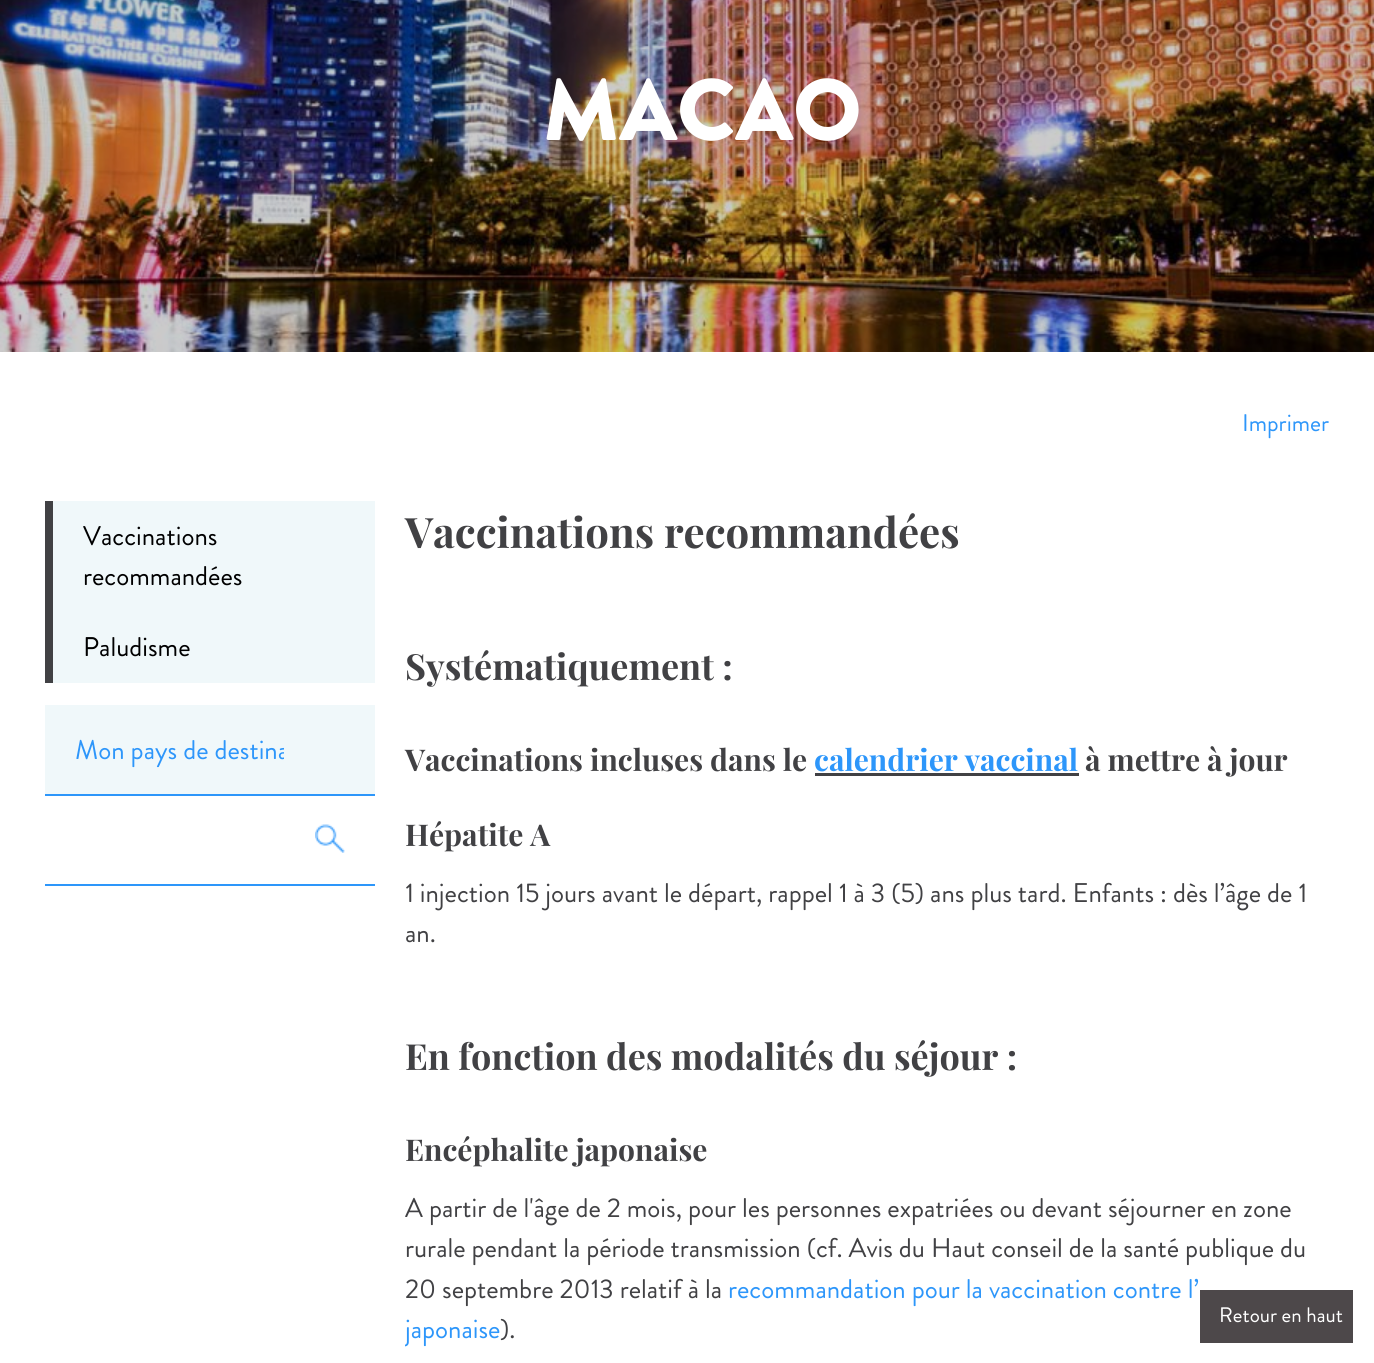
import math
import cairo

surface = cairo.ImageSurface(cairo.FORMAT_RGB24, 1374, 1363)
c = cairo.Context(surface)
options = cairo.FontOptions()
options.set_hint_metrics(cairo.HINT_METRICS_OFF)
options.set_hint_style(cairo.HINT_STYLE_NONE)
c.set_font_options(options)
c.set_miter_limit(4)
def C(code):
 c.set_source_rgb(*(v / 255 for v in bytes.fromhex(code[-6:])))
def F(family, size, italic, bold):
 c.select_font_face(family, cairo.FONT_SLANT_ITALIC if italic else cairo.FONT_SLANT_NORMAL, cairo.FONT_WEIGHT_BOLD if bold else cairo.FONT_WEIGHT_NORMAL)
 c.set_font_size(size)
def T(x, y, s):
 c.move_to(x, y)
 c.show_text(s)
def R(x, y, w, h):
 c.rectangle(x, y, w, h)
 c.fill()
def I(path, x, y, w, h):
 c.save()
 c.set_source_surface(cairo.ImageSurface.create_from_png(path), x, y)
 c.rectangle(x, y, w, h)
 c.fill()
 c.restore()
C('ffffff')
c.paint()
I('1.png',0,0,1374,352)
F('Brandon Grotesque Black',87,0,0)
C('ffffff')
T(543,140,'MACAO')
F('Brandon Grotesque',24,0,0)
C('2d96fa')
T(1242,431,'Imprimer')
R(45,884,330,2)
C('f0f8fa')
R(53,501,322,182)
C('414144')
R(45,501,8,182)
F('Brandon Grotesque',27,0,0)
C('000000')
T(83,545,'Vaccinations')
T(83,585,'recommandées')
T(83,656,'Paludisme')
C('f0f8fa')
R(45,705,330,89)
C('2d96fa')
R(45,794,330,2)
c.save()
c.rectangle(75,731,209,39)
c.clip()
T(75,759,'Mon pays de destina')
c.restore()
I('2.png',315,824,30,29)
F('Playfair Display',42,0,1)
C('414144')
T(405,548,'Vaccinations recommandées')
F('Playfair Display',36,0,1)
T(405,680,'Systématiquement :')
F('Playfair Display',30,0,1)
T(405,771,'Vaccinations incluses dans le')
C('2d96fa')
T(814,771,'calendrier vaccinal')
C('414144')
R(815,773,264,3)
T(1085,771,'à mettre à jour')
T(405,846,'Hépatite A')
F('Brandon Grotesque',27,0,0)
T(405,902,'1 injection 15 jours avant le départ, rappel 1 à 3 (5) ans plus tard. Enfants : dès l’âge de 1')
T(405,942,'an.')
F('Playfair Display',36,0,1)
T(405,1070,'En fonction des modalités du séjour :')
F('Playfair Display',30,0,1)
T(405,1161,'Encéphalite japonaise')
F('Brandon Grotesque',27,0,0)
T(405,1217,'A partir de l\'âge de 2 mois, pour les personnes expatriées ou devant séjourner en zone')
T(405,1257,'rurale pendant la période transmission (cf. Avis du Haut conseil de la santé publique du')
T(405,1298,'20 septembre 2013 relatif à la')
C('2d96fa')
T(728,1298,'recommandation pour la vaccination contre l’')
c.save()
c.rectangle(405,501,924,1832)
c.clip()
T(405,1338,'japonaise')
c.restore()
C('414144')
T(500,1338,').')
c.set_source_rgba(0.129,0.106,0.114,0.8)
R(1200,1290,153,53)
F('Brandon Grotesque',21,0,0)
C('ffffff')
T(1219,1322,'Retour en haut')
surface.write_to_png('o.png')
